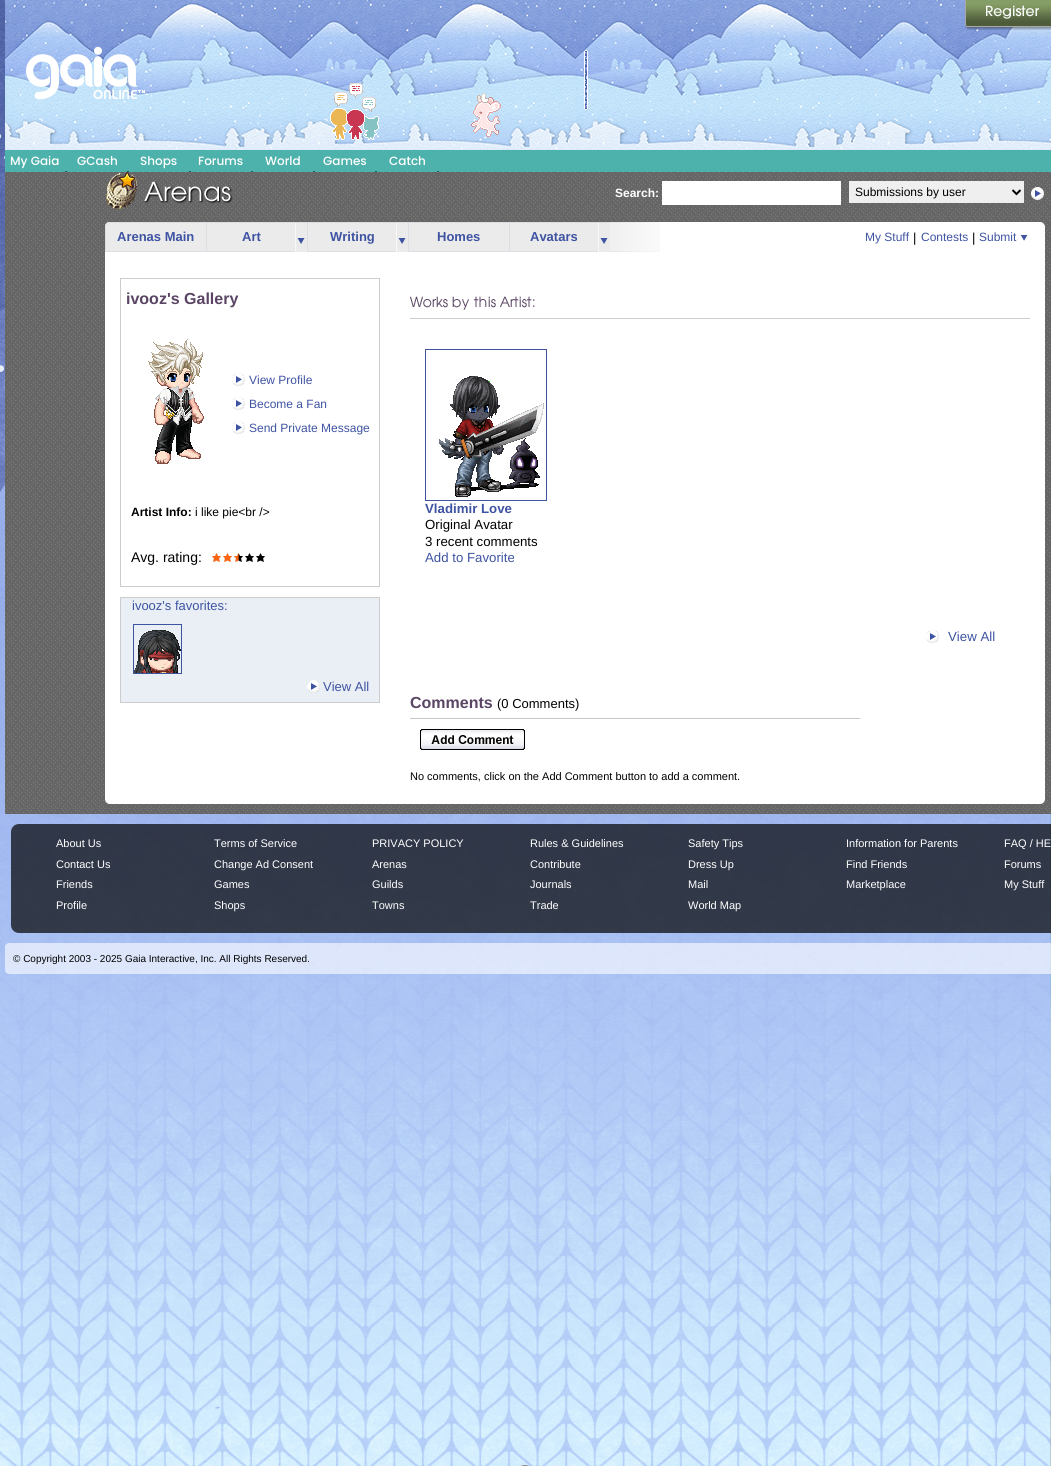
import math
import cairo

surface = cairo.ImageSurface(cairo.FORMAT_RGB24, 1051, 1466)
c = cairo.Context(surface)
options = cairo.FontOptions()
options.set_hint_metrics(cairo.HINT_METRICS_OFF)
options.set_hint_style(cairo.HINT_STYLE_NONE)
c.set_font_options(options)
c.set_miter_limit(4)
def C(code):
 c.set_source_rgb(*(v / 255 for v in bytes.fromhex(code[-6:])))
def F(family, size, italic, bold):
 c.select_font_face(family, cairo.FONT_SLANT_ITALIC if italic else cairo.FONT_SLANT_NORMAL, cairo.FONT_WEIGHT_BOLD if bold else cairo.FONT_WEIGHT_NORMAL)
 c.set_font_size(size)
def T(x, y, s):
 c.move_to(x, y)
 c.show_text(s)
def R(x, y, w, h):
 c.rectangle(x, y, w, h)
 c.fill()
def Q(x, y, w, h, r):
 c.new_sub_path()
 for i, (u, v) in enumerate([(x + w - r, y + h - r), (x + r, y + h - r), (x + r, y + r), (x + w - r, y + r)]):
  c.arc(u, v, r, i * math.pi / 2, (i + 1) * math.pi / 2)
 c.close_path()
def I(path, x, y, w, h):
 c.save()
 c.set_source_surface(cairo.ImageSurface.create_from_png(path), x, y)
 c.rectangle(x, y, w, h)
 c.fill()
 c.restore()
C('ffffff')
c.paint()
I('1.png',1050,814,1,652)
I('2.png',0,0,1051,1466)
I('3.png',5,0,960,150)
I('4.png',5,0,1046,150)
I('5.png',965,0,86,30)
I('6.png',26,46,119,54)
I('7.png',330,83,49,57)
I('8.png',471,93,30,44)
I('9.png',584,50,4,60)
C('4db1ac')
R(5,150,1046,22)
F('Poppins Medium',12,0,0)
C('ffffff')
T(10,165,'My Gaia')
T(77,165,'GCash')
T(140,165,'Shops')
T(198,165,'Forums')
T(265,165,'World')
T(323,165,'Games')
T(389,165,'Catch')
C('265f62')
R(65,171,2,1)
R(127,171,2,1)
R(189,171,2,1)
R(251,171,2,1)
R(313,171,2,1)
R(375,171,2,1)
R(437,171,2,1)
I('10.png',5,172,1046,642)
I('11.png',106,172,127,37)
F('Liberation Sans',12,0,1)
C('ffffff')
T(615,197,'Search:')
R(662,181,179,24)
C('efefef')
R(849,181,175,22)
c.new_path()
c.move_to(1012.5,190)
c.line_to(1016.5,194)
c.line_to(1020.5,190)
C('000000')
c.stroke()
F('Liberation Sans',12,0,0)
T(855,196,'Submissions by user')
I('12.png',1031,187,13,14)
C('ffffff')
Q(105,222,940,582,5)
c.fill()
C('ebebeb')
c.new_path()
c.move_to(110,222)
c.line_to(207,222)
c.line_to(207,252)
c.line_to(105,252)
c.line_to(105,227)
c.curve_to(105,224,107,222,110,222)
c.close_path()
c.fill()
C('dcdee3')
c.new_path()
c.move_to(110,222)
c.line_to(107,223)
c.line_to(206,223)
c.line_to(206,251)
c.line_to(106,251)
c.line_to(106,224)
c.curve_to(105,225,105,226,105,227)
c.line_to(105,252)
c.line_to(207,252)
c.line_to(207,222)
c.close_path()
c.fill()
F('Liberation Sans',13,0,1)
C('3e53a2')
T(117,241,'Arenas Main')
C('ebebeb')
R(207,223,88,28)
c.rectangle(206.5,222.5,101,29)
C('dcdee3')
c.set_line_width(1)
c.stroke()
C('3e53a2')
T(242,241,'Art')
I('13.png',295,223,12,29)
C('ebebeb')
R(308,223,88,28)
c.rectangle(307.5,222.5,101,29)
C('dcdee3')
c.stroke()
C('3e53a2')
T(330,241,'Writing')
I('13.png',396,223,12,29)
C('ebebeb')
c.rectangle(408.5,222.5,101,29)
c.fill_preserve()
C('dcdee3')
c.stroke()
C('3e53a2')
T(437,241,'Homes')
C('ebebeb')
R(510,223,88,28)
C('dcdee3')
R(509,222,101,1)
R(509,251,89,1)
C('3e53a2')
T(530,241,'Avatars')
I('13.png',598,223,12,29)
I('14.png',610,222,50,30)
F('Liberation Sans',12,0,0)
T(865,241,'My Stuff')
F('Liberation Sans',13,0,0)
C('000000')
T(913,242,'|')
F('Liberation Sans',12,0,0)
C('3e53a2')
T(921,241,'Contests')
F('Liberation Sans',13,0,0)
C('000000')
T(972,242,'|')
F('Liberation Sans',12,0,0)
C('3e53a2')
T(979,241,'Submit')
I('15.png',1020,235,8,6)
c.rectangle(120.5,278.5,259,308)
C('cccccc')
c.stroke()
F('Liberation Sans',16,0,1)
C('5a4564')
T(126,304,'ivooz\'s Gallery')
I('16.png',148,339,56,125)
I('17.png',232,373,13,13)
F('Liberation Sans',12,0,0)
C('3e53a2')
T(249,384,'View Profile')
I('17.png',232,397,13,13)
T(249,408,'Become a Fan')
I('17.png',232,421,13,13)
T(249,432,'Send Private Message')
F('Liberation Sans',12,0,1)
C('000000')
T(131,516,'Artist Info:')
F('Liberation Sans',12,0,0)
T(195,516,'i like pie<br />')
F('Liberation Sans',14,0,0)
T(131,562,'Avg. rating:')
I('18.png',212,553,9,9)
I('18.png',223,553,9,9)
I('19.png',234,553,9,9)
I('20.png',245,553,9,9)
I('20.png',256,553,9,9)
C('cccccc')
R(120,597,260,1)
C('e9eff5')
R(121,598,258,104)
C('cccccc')
R(379,598,1,104)
R(120,598,1,104)
F('Liberation Sans',13,0,0)
C('3e53a2')
T(132,610,'ivooz\'s favorites:')
c.rectangle(133.5,624.5,48,49)
c.stroke()
I('21.png',134,630,47,43)
I('22.png',307,680,13,13)
T(323,691,'View All')
C('cccccc')
R(120,702,260,1)
R(410,318,620,1)
I('23.png',410,296,125,14)
c.rectangle(425.5,349.5,121,151)
C('3e53a2')
c.stroke()
I('24.png',439,376,105,121)
F('Liberation Sans',13.25,0,1)
T(425,513,'Vladimir Love')
F('Liberation Sans',13.25,0,0)
C('000000')
T(425,529,'Original Avatar')
T(425,546,'3 recent comments')
C('3e53a2')
T(425,562,'Add to Favorite')
I('17.png',926,630,13,13)
T(948,641,'View All')
F('Liberation Sans',16,0,1)
C('5a4564')
T(410,708,'Comments')
F('Liberation Sans',13,0,0)
C('000000')
T(497,708,'(0 Comments)')
C('c5c7c9')
R(410,718,450,1)
I('25.png',420,729,105,21)
F('Liberation Sans',11,0,0)
C('000000')
T(410,780,'No comments, click on the Add Comment button to add a comment.')
c.set_source_rgba(0,0,0,0.7)
Q(11,824,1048,109,8)
c.fill()
C('ffffff')
T(56,847,'About Us')
T(214,847,'Terms of Service')
T(372,847,'PRIVACY POLICY')
T(530,847,'Rules & Guidelines')
T(688,847,'Safety Tips')
T(846,847,'Information for Parents')
T(1004,847,'FAQ / HE')
T(56,868,'Contact Us')
T(214,868,'Change Ad Consent')
T(372,868,'Arenas')
T(530,868,'Contribute')
T(688,868,'Dress Up')
T(846,868,'Find Friends')
T(1004,868,'Forums')
T(56,888,'Friends')
T(214,888,'Games')
T(372,888,'Guilds')
T(530,888,'Journals')
T(688,888,'Mail')
T(846,888,'Marketplace')
T(1004,888,'My Stuff')
T(56,909,'Profile')
T(214,909,'Shops')
T(372,909,'Towns')
T(530,909,'Trade')
T(688,909,'World Map')
c.set_source_rgba(1,1,1,0.6)
Q(5,943,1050,31,4)
c.fill()
F('Liberation Sans',10,0,0)
C('000000')
T(13,962,'© Copyright 2003 - 2025 Gaia Interactive, Inc. All Rights Reserved.')
Q(514.5,1465.5,21,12,10.5)
c.set_source_rgba(0.969,0.969,0.969,0.75)
c.stroke()
Q(514.5,1465.5,21,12,10.5)
C('888888')
c.stroke()
surface.write_to_png('o.png')
